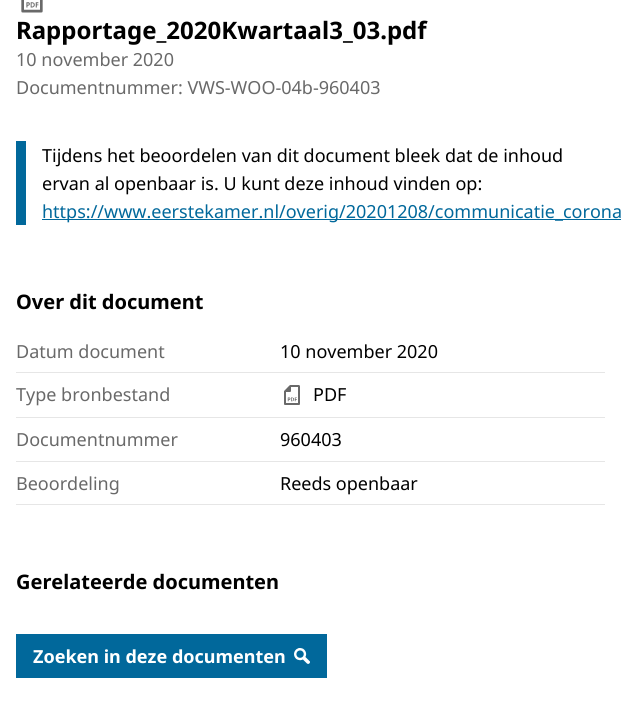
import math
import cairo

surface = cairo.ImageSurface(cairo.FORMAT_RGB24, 621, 710)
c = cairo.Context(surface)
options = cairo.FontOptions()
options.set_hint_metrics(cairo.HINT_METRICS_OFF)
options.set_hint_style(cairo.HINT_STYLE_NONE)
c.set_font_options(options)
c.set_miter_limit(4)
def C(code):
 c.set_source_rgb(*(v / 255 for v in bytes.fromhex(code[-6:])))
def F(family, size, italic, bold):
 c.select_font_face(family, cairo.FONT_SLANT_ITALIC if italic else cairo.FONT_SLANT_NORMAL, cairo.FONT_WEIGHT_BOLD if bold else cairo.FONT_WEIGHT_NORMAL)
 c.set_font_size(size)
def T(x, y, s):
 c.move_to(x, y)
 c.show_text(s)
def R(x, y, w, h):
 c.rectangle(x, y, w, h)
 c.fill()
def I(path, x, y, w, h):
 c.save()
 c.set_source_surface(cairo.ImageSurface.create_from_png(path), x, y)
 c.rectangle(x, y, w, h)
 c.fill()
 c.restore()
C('ffffff')
c.paint()
I('1.png',21,0,22,13)
F('Noto Sans',24,0,1)
C('000000')
T(16,39,'Rapportage_2020Kwartaal3_03.pdf')
F('Noto Sans',18,0,0)
C('696969')
T(16,66,'10 november 2020')
T(16,94,'Documentnummer: VWS-WOO-04b-960403')
C('01689b')
R(16,141,10,84)
C('000000')
T(42,162,'Tijdens het beoordelen van dit document bleek dat de inhoud')
T(42,190,'ervan al openbaar is. U kunt deze inhoud vinden op:')
C('01689b')
R(42,219,579,1)
T(42,218,'https://www.eerstekamer.nl/overig/20201208/communicatie_corona')
F('Noto Sans',20,0,1)
C('000000')
T(16,309,'Over dit document')
F('Noto Sans',18,0,0)
C('696969')
T(16,358,'Datum document')
C('e6e6e6')
R(16,372,589,1)
C('000000')
T(280,358,'10 november 2020')
C('696969')
T(16,401,'Type bronbestand')
C('e6e6e6')
R(16,417,589,1)
I('2.png',284,385,16,20)
C('000000')
T(313,401,'PDF')
C('696969')
T(16,446,'Documentnummer')
C('e6e6e6')
R(16,461,589,1)
C('000000')
T(280,446,'960403')
C('696969')
T(16,490,'Beoordeling')
C('e6e6e6')
R(16,504,589,1)
C('000000')
T(280,490,'Reeds openbaar')
F('Noto Sans',20,0,1)
T(16,589,'Gerelateerde documenten')
C('01689b')
R(16,634,311,44)
F('Noto Sans',18,0,1)
C('ffffff')
T(33,663,'Zoeken in deze documenten')
I('3.png',294,648,16,16)
surface.write_to_png('o.png')
